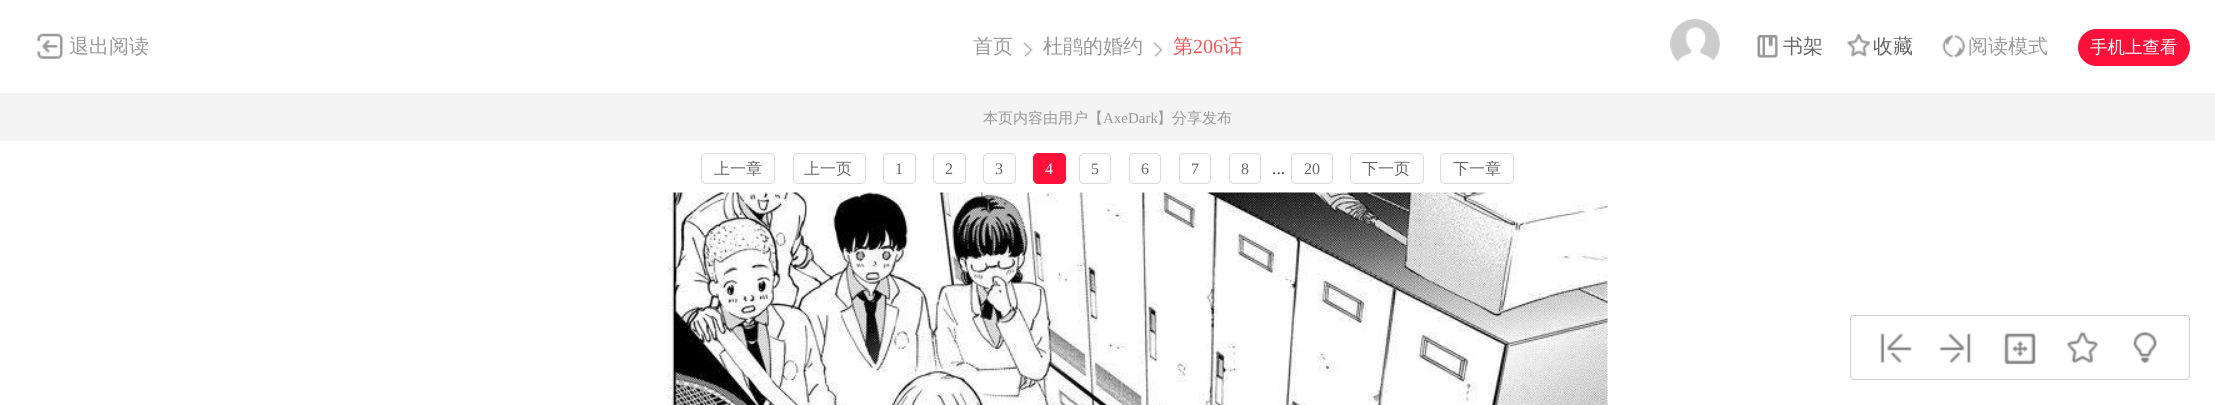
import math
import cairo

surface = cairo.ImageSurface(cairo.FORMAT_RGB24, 2215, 405)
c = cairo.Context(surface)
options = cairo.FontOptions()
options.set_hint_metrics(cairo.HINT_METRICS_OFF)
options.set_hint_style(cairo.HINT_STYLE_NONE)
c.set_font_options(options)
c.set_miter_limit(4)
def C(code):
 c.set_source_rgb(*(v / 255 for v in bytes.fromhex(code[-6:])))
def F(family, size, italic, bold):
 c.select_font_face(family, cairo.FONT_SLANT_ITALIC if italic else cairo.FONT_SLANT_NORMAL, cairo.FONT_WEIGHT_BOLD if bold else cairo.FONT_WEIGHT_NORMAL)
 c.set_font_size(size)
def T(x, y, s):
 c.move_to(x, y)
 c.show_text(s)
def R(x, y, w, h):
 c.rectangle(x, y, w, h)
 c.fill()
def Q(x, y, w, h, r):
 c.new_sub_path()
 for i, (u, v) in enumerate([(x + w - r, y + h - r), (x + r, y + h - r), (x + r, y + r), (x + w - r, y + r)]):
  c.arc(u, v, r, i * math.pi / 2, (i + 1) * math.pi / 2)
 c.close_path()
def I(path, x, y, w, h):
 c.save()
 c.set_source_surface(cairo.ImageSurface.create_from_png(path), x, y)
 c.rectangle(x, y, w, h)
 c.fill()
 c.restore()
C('ffffff')
c.paint()
C('ededed')
R(0,93,2215,1)
I('1.png',37,33,26,26)
F('WenQuanYi Zen Hei Medium',20,0,0)
C('999999')
T(69,53,'退出阅读')
T(973,53,'首页')
I('2.png',1023,42,10,15)
T(1043,53,'杜鹃的婚约')
I('2.png',1153,42,10,15)
C('f7545a')
T(1173,53,'第')
F('Liberation Serif',20,0,0)
T(1193,53,'206')
F('WenQuanYi Zen Hei Medium',20,0,0)
T(1223,53,'话')
I('3.png',1670,19,50,43)
I('4.png',1757,35,21,23)
C('666666')
T(1783,53,'书架')
I('5.png',1847,33,23,24)
T(1873,53,'收藏')
I('6.png',1942,35,23,23)
C('999999')
T(1968,53,'阅读模式')
C('fd113a')
Q(2078,29,112,37,18.5)
c.fill()
F('WenQuanYi Zen Hei Medium',17.5,0,0)
C('ffffff')
T(2090,53,'手机上查看')
C('f4f4f4')
R(0,95,2215,46)
C('f0f0f0')
R(0,94,2215,1)
F('WenQuanYi Zen Hei Medium',15,0,0)
C('999999')
T(983,123,'本页内容由用户【')
F('Liberation Serif',15,0,0)
T(1103,123,'AxeDark')
F('WenQuanYi Zen Hei Medium',15,0,0)
T(1157,123,'】分享发布')
Q(701.5,153.5,73,30,4.5)
C('d9d9d9')
c.set_line_width(1)
c.stroke()
F('WenQuanYi Zen Hei Medium',16,0,0)
C('666666')
T(714,174,'上一章')
Q(793.5,153.5,72,30,4.5)
C('d9d9d9')
c.stroke()
C('666666')
T(804,174,'上一页')
Q(883.5,153.5,32,30,4.5)
C('d9d9d9')
c.stroke()
F('Liberation Serif',16,0,0)
C('666666')
T(895,174,'1')
Q(933.5,153.5,32,30,4.5)
C('d9d9d9')
c.stroke()
C('666666')
T(945,174,'2')
Q(983.5,153.5,32,30,4.5)
C('d9d9d9')
c.stroke()
C('666666')
T(995,174,'3')
C('fd113a')
Q(1033.5,153.5,32,30,4.5)
c.fill_preserve()
c.stroke()
C('ffffff')
T(1045,174,'4')
Q(1079.5,153.5,31,30,4.5)
C('d9d9d9')
c.stroke()
C('666666')
T(1091,174,'5')
Q(1129.5,153.5,31,30,4.5)
C('d9d9d9')
c.stroke()
C('666666')
T(1141,174,'6')
Q(1179.5,153.5,31,30,4.5)
C('d9d9d9')
c.stroke()
C('666666')
T(1191,174,'7')
Q(1229.5,153.5,31,30,4.5)
C('d9d9d9')
c.stroke()
C('666666')
T(1241,174,'8')
F('Liberation Serif',17.5,0,0)
C('444444')
T(1272,174,'...')
Q(1291.5,153.5,41,30,4.5)
C('d9d9d9')
c.stroke()
F('Liberation Serif',16,0,0)
C('666666')
T(1304,174,'20')
Q(1350.5,153.5,73,30,4.5)
C('d9d9d9')
c.stroke()
F('WenQuanYi Zen Hei Medium',16,0,0)
C('666666')
T(1362,174,'下一页')
Q(1440.5,153.5,73,30,4.5)
C('d9d9d9')
c.stroke()
C('666666')
T(1453,174,'下一章')
I('7.png',667,192,941,213)
Q(1850.5,315.5,339,64,3.5)
C('cccccc')
c.stroke()
I('8.png',1880,333,32,30)
I('9.png',1939,333,32,30)
I('10.png',2004,333,32,32)
I('11.png',2066,331,32,32)
I('12.png',2133,331,24,32)
surface.write_to_png('o.png')
